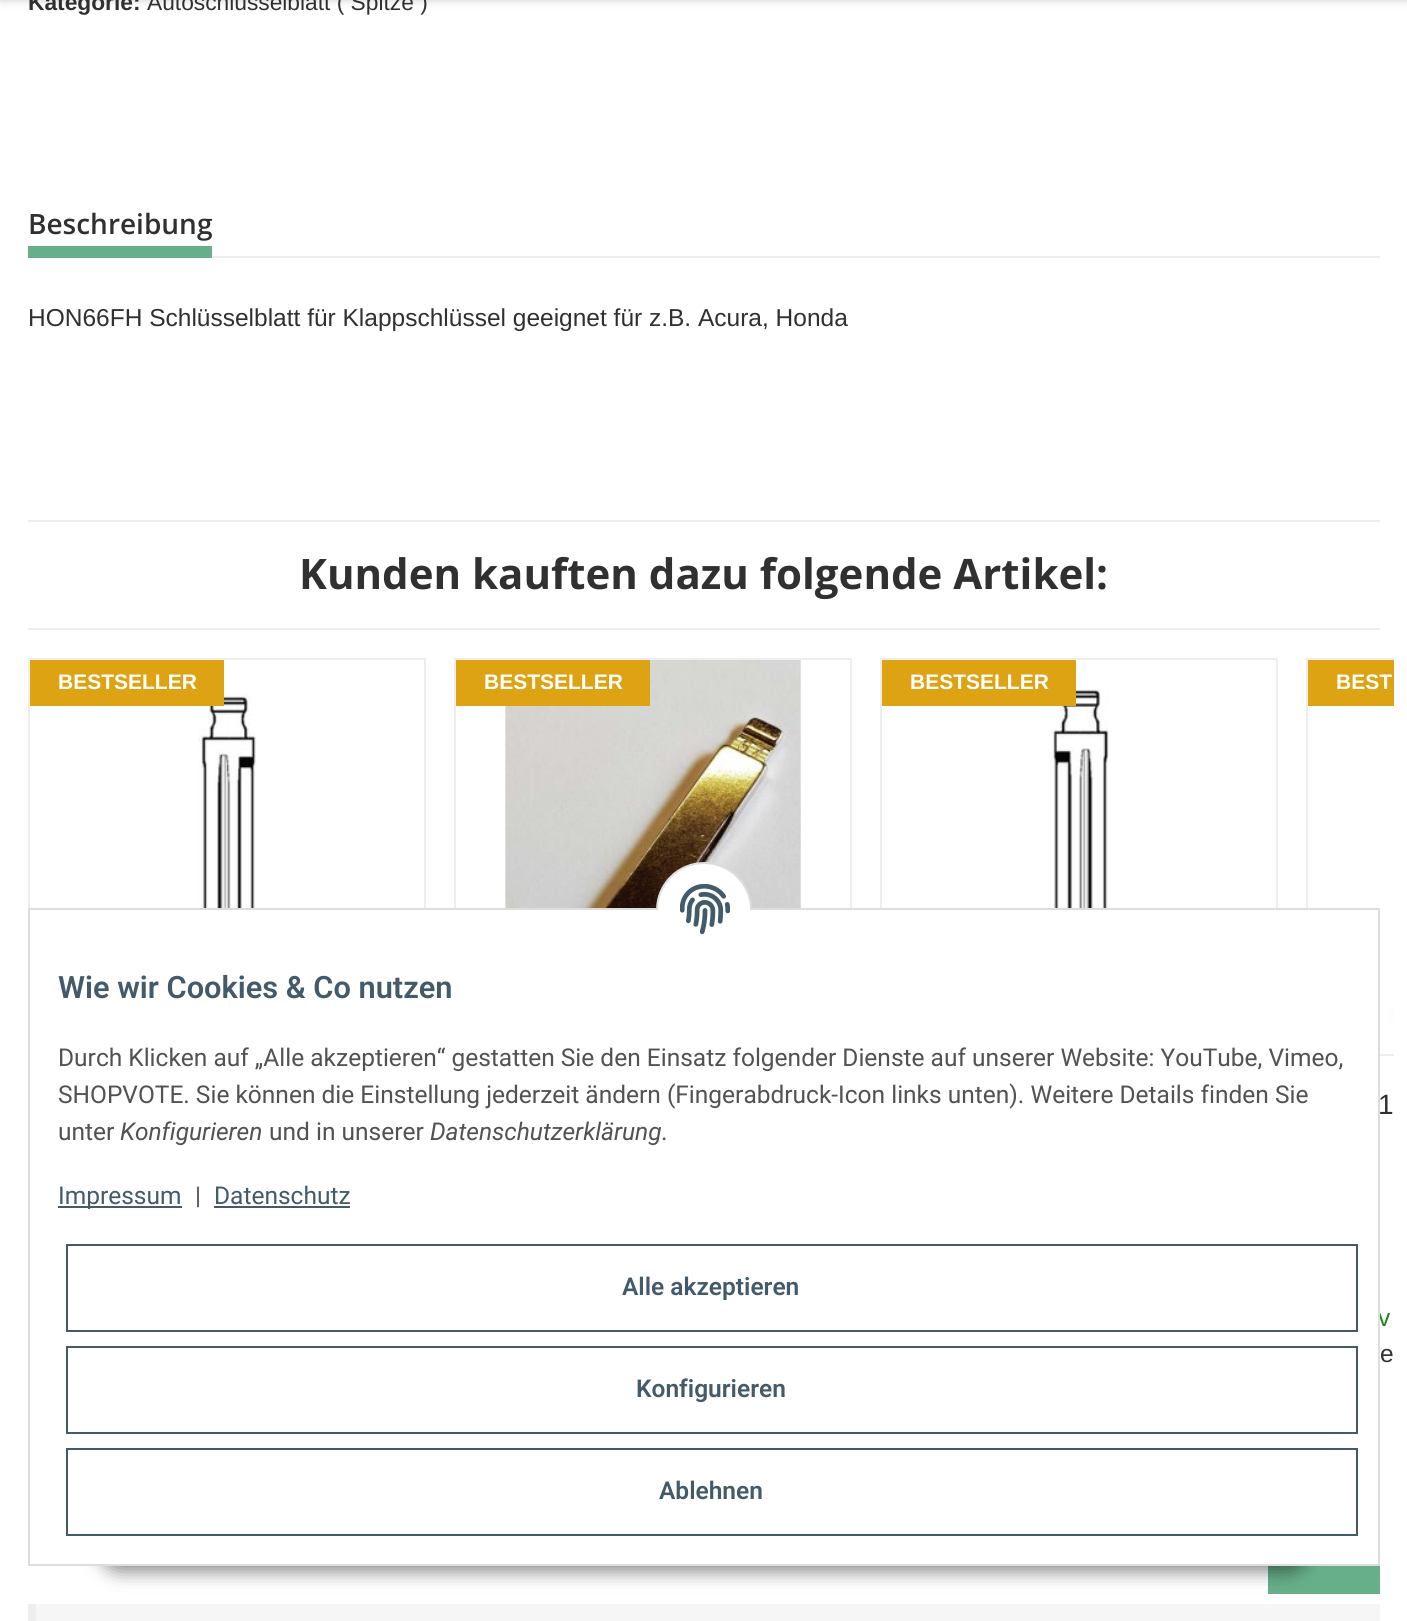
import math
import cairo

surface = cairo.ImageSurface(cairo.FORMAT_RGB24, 1407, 1621)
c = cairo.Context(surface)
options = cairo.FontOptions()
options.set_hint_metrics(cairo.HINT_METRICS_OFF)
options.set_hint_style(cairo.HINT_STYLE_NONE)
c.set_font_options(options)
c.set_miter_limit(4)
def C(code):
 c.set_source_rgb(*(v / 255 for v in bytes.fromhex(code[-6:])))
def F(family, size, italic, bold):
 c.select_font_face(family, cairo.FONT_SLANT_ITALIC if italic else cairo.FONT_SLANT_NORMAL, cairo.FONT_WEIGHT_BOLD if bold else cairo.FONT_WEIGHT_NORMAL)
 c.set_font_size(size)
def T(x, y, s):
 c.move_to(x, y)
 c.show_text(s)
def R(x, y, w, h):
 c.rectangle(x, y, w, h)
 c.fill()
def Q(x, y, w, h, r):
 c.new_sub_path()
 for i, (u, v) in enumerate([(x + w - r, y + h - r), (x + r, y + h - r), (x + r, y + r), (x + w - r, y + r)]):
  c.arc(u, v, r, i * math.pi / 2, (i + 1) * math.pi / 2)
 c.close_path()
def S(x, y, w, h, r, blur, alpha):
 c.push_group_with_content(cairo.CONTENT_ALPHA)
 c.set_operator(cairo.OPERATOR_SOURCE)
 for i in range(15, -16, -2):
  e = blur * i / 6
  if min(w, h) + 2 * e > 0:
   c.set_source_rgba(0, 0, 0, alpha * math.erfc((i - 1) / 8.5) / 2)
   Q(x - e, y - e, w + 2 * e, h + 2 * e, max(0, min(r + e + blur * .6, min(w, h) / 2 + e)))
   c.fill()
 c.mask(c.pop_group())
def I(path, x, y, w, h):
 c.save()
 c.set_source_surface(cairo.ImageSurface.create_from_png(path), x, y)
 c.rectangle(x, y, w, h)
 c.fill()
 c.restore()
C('ffffff')
c.paint()
C('000000')
S(0,-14,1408,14,0,4.5,.2)
F('Liberation Sans',22.75,0,1)
C('303030')
T(28,10,'Kategorie:')
F('Liberation Sans',22.75,0,0)
T(147,10,'Autoschlüsselblatt ( Spitze )')
C('eeeeee')
R(212,256,1168,2)
F('Open Sans SemiBold',28,0,0)
C('303030')
T(28,234,'Beschreibung')
C('67af8a')
R(28,246,184,12)
F('Liberation Sans',24.5,0,0)
C('303030')
T(28,326,'HON66FH Schlüsselblatt für Klappschlüssel geeignet für z.B. Acura, Honda')
C('eeeeee')
R(28,520,1352,2)
R(28,628,1352,2)
F('Open Sans',42,0,1)
C('303030')
T(299,589,'Kunden kauften dazu folgende Artikel:')
c.rectangle(29,659,396,396)
C('eeeeee')
c.stroke()
I('1.png',198,692,59,216)
C('dea313')
R(30,660,194,46)
F('Liberation Sans',21,0,1)
C('ffffff')
T(58,689,'BESTSELLER')
c.rectangle(455,659,396,396)
C('eeeeee')
c.stroke()
I('2.png',505,660,296,248)
C('dea313')
R(456,660,194,46)
C('ffffff')
T(484,689,'BESTSELLER')
c.rectangle(881,659,396,396)
C('eeeeee')
c.stroke()
I('3.png',1050,689,59,219)
C('dea313')
R(882,660,194,46)
C('ffffff')
T(910,689,'BESTSELLER')
c.save()
c.rectangle(14,658,1380,716)
c.clip()
c.rectangle(1307,659,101,396)
C('eeeeee')
c.stroke()
c.restore()
C('dea313')
R(1308,660,86,46)
C('ffffff')
T(1336,689,'BEST')
I('4.png',1389,1007,5,17)
F('Liberation Sans',28,0,0)
C('303030')
T(1378,1114,'1')
F('Liberation Sans',24.5,0,0)
C('1c871e')
T(1378,1326,'v')
C('303030')
T(1380,1362,'e')
C('67af8a')
R(1268,1566,112,28)
C('000000')
S(98,1516,1212,56,28,9,.45)
C('ffffff')
c.rectangle(29,909,1350,656)
c.fill_preserve()
C('dddddd')
c.stroke()
C('ffffff')
c.arc(704,910,47,0,2 * math.pi)
c.fill_preserve()
C('dddddd')
c.stroke()
C('ffffff')
R(656,910,96,48)
I('5.png',680,884,50,51)
F('Roboto SemiBold',30.75,0,0)
C('435a6b')
T(58,998,'Wie wir Cookies & Co nutzen')
F('Roboto',24.5,0,0)
C('525252')
T(58,1066,'Durch Klicken auf „Alle akzeptieren“ gestatten Sie den Einsatz folgender Dienste auf unserer Website: YouTube, Vimeo,')
T(58,1103,'SHOPVOTE. Sie können die Einstellung jederzeit ändern (Fingerabdruck-Icon links unten). Weitere Details finden Sie')
T(58,1140,'unter')
F('Roboto',24.5,1,0)
T(120,1140,'Konfigurieren')
F('Roboto',24.5,0,0)
T(269,1140,'und in unserer')
F('Roboto',24.5,1,0)
T(430,1140,'Datenschutzerklärung')
F('Roboto',24.5,0,0)
T(661,1140,'.')
C('435a6b')
R(58,1206,124,2)
T(58,1204,'Impressum')
C('525252')
T(195,1204,'|')
C('435a6b')
T(214,1204,'Datenschutz')
R(214,1206,136,2)
c.rectangle(67,1245,1290,86)
c.stroke()
F('Roboto SemiBold',24.5,0,0)
T(622,1295,'Alle akzeptieren')
c.rectangle(67,1347,1290,86)
c.stroke()
T(636,1397,'Konfigurieren')
c.rectangle(67,1449,1290,86)
c.stroke()
T(659,1499,'Ablehnen')
C('f6f6f6')
R(36,1604,1344,17)
C('eeeeee')
R(28,1604,8,17)
surface.write_to_png('o.png')
